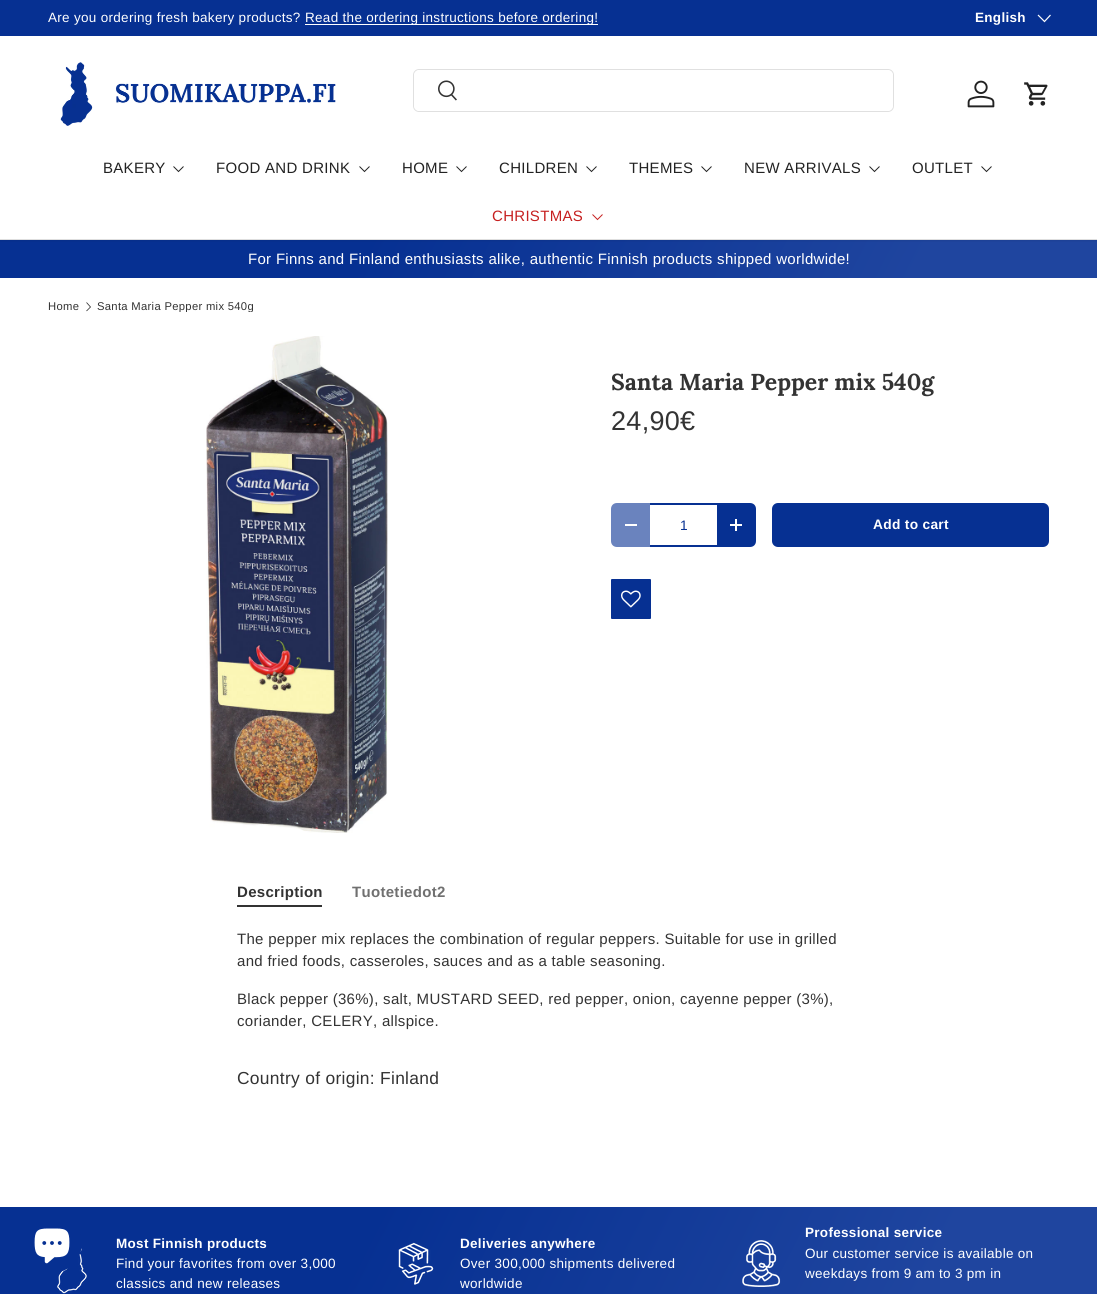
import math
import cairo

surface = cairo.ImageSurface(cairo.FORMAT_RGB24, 1097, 1294)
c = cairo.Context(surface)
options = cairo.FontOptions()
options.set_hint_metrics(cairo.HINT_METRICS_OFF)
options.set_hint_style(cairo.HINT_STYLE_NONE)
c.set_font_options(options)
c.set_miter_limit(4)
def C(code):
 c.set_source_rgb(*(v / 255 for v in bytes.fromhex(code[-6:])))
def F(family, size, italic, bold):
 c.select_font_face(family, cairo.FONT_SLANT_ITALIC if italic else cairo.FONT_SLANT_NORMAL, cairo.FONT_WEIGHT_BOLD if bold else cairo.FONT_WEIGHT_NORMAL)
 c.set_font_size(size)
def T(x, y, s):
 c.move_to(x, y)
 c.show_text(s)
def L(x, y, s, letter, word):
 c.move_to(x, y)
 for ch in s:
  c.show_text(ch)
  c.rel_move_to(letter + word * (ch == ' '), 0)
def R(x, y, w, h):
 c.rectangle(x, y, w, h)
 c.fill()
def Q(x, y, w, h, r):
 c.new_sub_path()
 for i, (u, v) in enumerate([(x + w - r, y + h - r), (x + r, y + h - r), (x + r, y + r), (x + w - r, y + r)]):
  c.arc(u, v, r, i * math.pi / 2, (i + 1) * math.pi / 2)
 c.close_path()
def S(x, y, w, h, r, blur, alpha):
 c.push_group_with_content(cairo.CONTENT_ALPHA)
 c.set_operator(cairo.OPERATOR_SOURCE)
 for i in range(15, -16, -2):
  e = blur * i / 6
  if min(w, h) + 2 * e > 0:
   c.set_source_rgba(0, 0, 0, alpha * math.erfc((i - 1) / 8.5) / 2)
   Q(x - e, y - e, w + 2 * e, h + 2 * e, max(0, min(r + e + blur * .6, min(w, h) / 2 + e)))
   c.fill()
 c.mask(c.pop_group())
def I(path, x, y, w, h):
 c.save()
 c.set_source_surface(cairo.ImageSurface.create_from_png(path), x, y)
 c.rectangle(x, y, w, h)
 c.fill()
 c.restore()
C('ffffff')
c.paint()
gradient = cairo.LinearGradient(105,33,992,485)
gradient.add_color_stop_rgba(.33,0.024,0.188,0.573,1)
gradient.add_color_stop_rgba(.84,0.122,0.271,0.624,1)
c.set_source(gradient)
R(0,240,1097,38)
c.save()
c.rectangle(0,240,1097,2)
c.clip()
C('000000')
S(-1,35,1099,206,0,1.5,.08)
c.restore()
C('063092')
R(0,0,1097,36)
F('Liberation Sans',13.5,0,0)
C('ffffff')
L(48,22,'Are you ordering fresh bakery products?',.3,0)
R(305,24,293,1)
L(305,22,'Read the ordering instructions before ordering!',.3,0)
F('Liberation Sans',13.5,0,1)
L(975,22,'English',.3,0)
c.new_path()
c.move_to(1050.5,15)
c.line_to(1044.5,21.5)
c.line_to(1038,15)
c.set_line_width(1.2)
c.stroke()
I('1.png',60,62,276,64)
Q(413.5,69.5,480,42,5.5)
C('e0e0e0')
c.set_line_width(1)
c.stroke()
C('ffffff')
Q(414,70,479,41,6)
c.fill()
I('2.png',438,80,19,21)
I('3.png',967,80,28,28)
I('4.png',1024,82,24,24)
F('Liberation Sans',15,0,0)
C('222222')
L(103,173,'BAKERY',.3,0)
c.new_path()
c.move_to(183.5,166.5)
c.line_to(178.5,171.5)
c.line_to(173.5,166.5)
c.stroke()
L(216,173,'FOOD AND DRINK',.3,0)
c.new_path()
c.move_to(369.5,166.5)
c.line_to(364.5,171.5)
c.line_to(359.5,166.5)
c.stroke()
L(402,173,'HOME',.3,0)
c.new_path()
c.move_to(466.5,166.5)
c.line_to(461.5,171.5)
c.line_to(456.5,166.5)
c.stroke()
L(499,173,'CHILDREN',.3,0)
c.new_path()
c.move_to(596.5,166.5)
c.line_to(591.5,171.5)
c.line_to(586.5,166.5)
c.stroke()
L(629,173,'THEMES',.3,0)
c.new_path()
c.move_to(711.5,166.5)
c.line_to(706.5,171.5)
c.line_to(701.5,166.5)
c.stroke()
L(744,173,'NEW ARRIVALS',.3,0)
c.new_path()
c.move_to(879.5,166.5)
c.line_to(874.5,171.5)
c.line_to(869.5,166.5)
c.stroke()
L(912,173,'OUTLET',.3,0)
c.new_path()
c.move_to(991.5,166.5)
c.line_to(986.5,171.5)
c.line_to(981.5,166.5)
c.stroke()
C('c62020')
L(492,221,'CHRISTMAS',.3,0)
c.new_path()
c.move_to(602.5,214.5)
c.line_to(597.5,219.5)
c.line_to(592.5,214.5)
c.stroke()
C('dedede')
R(0,239,1097,1)
C('ffffff')
L(248,264,'For Finns and Finland enthusiasts alike, authentic Finnish products shipped worldwide!',.3,0)
F('Liberation Sans',11.25,0,0)
C('333333')
L(48,310,'Home',.3,0)
c.new_path()
c.move_to(86.5,302.5)
c.line_to(90.5,307)
c.line_to(86.5,311)
c.set_line_width(.8)
c.stroke()
c.save()
c.rectangle(97,301,157,11)
c.clip()
L(97,310,'Santa Maria Pepper mix 540g',.3,0)
c.restore()
I('5.png',206,336,182,497)
F('Lora',23,0,1)
T(611,390,'Santa Maria Pepper mix 540g')
F('Liberation Sans',27,0,0)
L(611,430,'24,90€',.3,0)
C('6a83be')
c.new_path()
c.move_to(617,503)
c.line_to(650,503)
c.line_to(650,547)
c.line_to(617,547)
c.curve_to(613.5,547,611,544.5,611,541)
c.line_to(611,509)
c.curve_to(611,505.5,613.5,503,617,503)
c.close_path()
c.fill()
C('ffffff')
R(625,524,12,2)
C('063092')
R(650,545,67,2)
R(650,503,67,2)
F('Liberation Sans',13.75,0,0)
T(680,530,'1')
c.new_path()
c.move_to(717,503)
c.line_to(750,503)
c.curve_to(753.5,503,756,505.5,756,509)
c.line_to(756,541)
c.curve_to(756,544.5,753.5,547,750,547)
c.line_to(717,547)
c.close_path()
c.fill()
C('ffffff')
R(730,524,12,2)
R(735,519,2,12)
gradient = cairo.LinearGradient(237,426,1030,624)
gradient.add_color_stop_rgba(.6,0.18,0.333,0.682,1)
gradient.add_color_stop_rgba(.6,0.024,0.188,0.573,1)
gradient.add_color_stop_rgba(1,0.024,0.188,0.573,1)
c.set_source(gradient)
Q(772,503,277,44,6)
c.fill()
F('Liberation Sans',13.75,0,1)
C('ffffff')
L(873,529,'Add to cart',.3,0)
C('063092')
Q(611,579,40,40,1)
c.fill()
I('6.png',621,590,20,18)
F('Liberation Sans',15,0,1)
C('333333')
L(237,897,'Description',.3,0)
R(237,905,85,2)
C('707070')
L(352,897,'Tuotetiedot2',.3,0)
F('Liberation Sans',15,0,0)
C('333333')
L(237,944,'The pepper mix replaces the combination of regular peppers. Suitable for use in grilled',.3,0)
L(237,966,'and fried foods, casseroles, sauces and as a table seasoning.',.3,0)
L(237,1004,'Black pepper (36%), salt, MUSTARD SEED, red pepper, onion, cayenne pepper (3%),',.3,0)
L(237,1026,'coriander, CELERY, allspice.',.3,0)
F('Liberation Sans',17.4,0,0)
L(237,1084,'Country of origin: Finland',.3,0)
gradient = cairo.LinearGradient(90,1030,1007,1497)
gradient.add_color_stop_rgba(.33,0.024,0.188,0.573,1)
gradient.add_color_stop_rgba(.84,0.122,0.271,0.624,1)
c.set_source(gradient)
R(0,1207,1097,87)
I('8.png',57,1248,30,46)
C('063092')
c.arc(52,1243,30,0,2 * math.pi)
c.fill()
I('7.png',34,1228,36,36)
F('Liberation Sans',13.5,0,1)
C('ffffff')
L(116,1248,'Most Finnish products',.3,0)
F('Liberation Sans',13.5,0,0)
L(116,1268,'Find your favorites from over 3,000',.3,0)
L(116,1288,'classics and new releases',.3,0)
I('9.png',398,1242,36,43)
F('Liberation Sans',13.5,0,1)
L(460,1248,'Deliveries anywhere',.3,0)
F('Liberation Sans',13.5,0,0)
L(460,1268,'Over 300,000 shipments delivered',.3,0)
L(460,1288,'worldwide',.3,0)
I('10.png',742,1240,39,47)
F('Liberation Sans',13.5,0,1)
L(805,1237,'Professional service',.3,0)
F('Liberation Sans',13.5,0,0)
L(805,1258,'Our customer service is available on',.3,0)
L(805,1278,'weekdays from 9 am to 3 pm in',.3,0)
surface.write_to_png('o.png')
